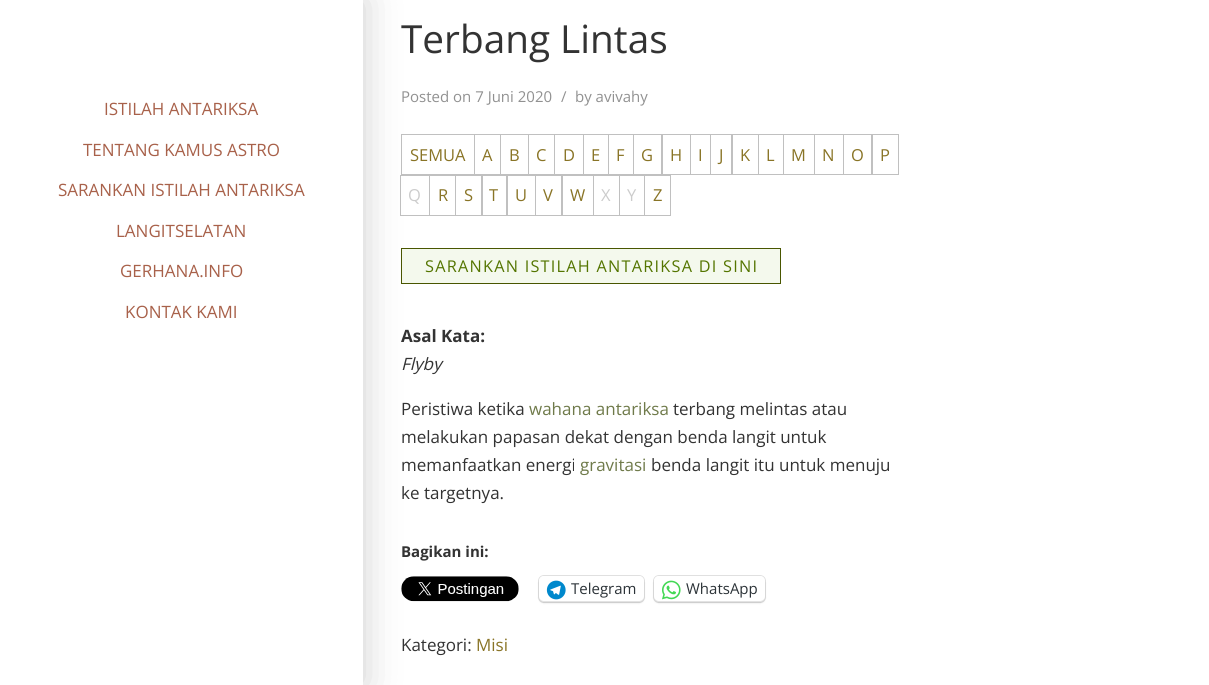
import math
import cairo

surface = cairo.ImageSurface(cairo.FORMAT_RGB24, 1209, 685)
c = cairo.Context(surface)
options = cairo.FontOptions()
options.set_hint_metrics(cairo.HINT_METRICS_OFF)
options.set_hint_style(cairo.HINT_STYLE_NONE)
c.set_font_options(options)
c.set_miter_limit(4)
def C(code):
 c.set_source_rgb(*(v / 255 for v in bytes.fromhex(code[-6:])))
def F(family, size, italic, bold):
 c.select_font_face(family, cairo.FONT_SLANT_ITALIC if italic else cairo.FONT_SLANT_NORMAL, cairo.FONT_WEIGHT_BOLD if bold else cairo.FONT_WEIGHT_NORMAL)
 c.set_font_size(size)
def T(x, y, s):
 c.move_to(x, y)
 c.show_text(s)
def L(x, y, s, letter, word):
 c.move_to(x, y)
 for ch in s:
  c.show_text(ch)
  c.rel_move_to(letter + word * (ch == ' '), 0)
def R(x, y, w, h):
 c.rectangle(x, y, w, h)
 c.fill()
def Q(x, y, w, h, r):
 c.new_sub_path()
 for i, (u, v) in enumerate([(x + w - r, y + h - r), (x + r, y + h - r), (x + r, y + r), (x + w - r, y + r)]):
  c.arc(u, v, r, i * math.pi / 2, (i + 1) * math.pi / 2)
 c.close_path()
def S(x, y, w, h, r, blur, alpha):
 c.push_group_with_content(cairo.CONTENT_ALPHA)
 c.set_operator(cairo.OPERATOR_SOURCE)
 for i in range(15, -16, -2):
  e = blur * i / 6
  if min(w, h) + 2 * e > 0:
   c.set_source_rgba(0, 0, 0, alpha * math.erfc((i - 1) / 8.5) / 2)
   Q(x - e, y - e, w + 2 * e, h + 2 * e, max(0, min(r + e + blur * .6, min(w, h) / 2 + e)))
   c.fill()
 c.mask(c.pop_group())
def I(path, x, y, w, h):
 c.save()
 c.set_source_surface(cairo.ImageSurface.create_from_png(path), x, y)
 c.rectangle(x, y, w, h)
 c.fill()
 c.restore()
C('ffffff')
c.paint()
c.rectangle(401.5,134.5,73,40)
C('c0c0c0')
c.set_line_width(1)
c.stroke()
c.rectangle(400.5,175.5,29,40)
c.stroke()
C('f4f9ed')
c.rectangle(401.5,248.5,379,35)
c.fill_preserve()
C('495600')
c.stroke()
I('1.png',401,576,118,26)
C('000000')
S(0,0,363,685,0,19,.2)
C('ffffff')
R(0,0,363,685)
F('Open Sans',17,0,0)
C('a8614a')
T(104,115,'ISTILAH ANTARIKSA')
T(83,156,'TENTANG KAMUS ASTRO')
T(58,196,'SARANKAN ISTILAH ANTARIKSA')
T(116,237,'LANGITSELATAN')
T(120,277,'GERHANA.INFO')
T(125,318,'KONTAK KAMI')
F('Open Sans',38.75,0,0)
C('333333')
T(401,53,'Terbang Lintas')
F('Open Sans',15,0,0)
C('919191')
T(401,102,'Posted on 7 Juni 2020')
T(561,102,'/')
T(575,102,'by avivahy')
F('Open Sans',16.5,0,0)
C('897426')
T(410,161,'SEMUA')
c.rectangle(474.5,134.5,26,40)
C('c0c0c0')
c.stroke()
C('897426')
T(482,161,'A')
c.rectangle(500.5,134.5,28,40)
C('c0c0c0')
c.stroke()
C('897426')
T(509,161,'B')
c.rectangle(528.5,134.5,26,40)
C('c0c0c0')
c.stroke()
C('897426')
T(536,161,'C')
c.rectangle(554.5,134.5,29,40)
C('c0c0c0')
c.stroke()
C('897426')
T(563,161,'D')
c.rectangle(583.5,134.5,25,40)
C('c0c0c0')
c.stroke()
C('897426')
T(591,161,'E')
c.rectangle(608.5,134.5,25,40)
C('c0c0c0')
c.stroke()
C('897426')
T(616,161,'F')
c.rectangle(633.5,134.5,29,40)
C('c0c0c0')
c.stroke()
C('897426')
T(641,161,'G')
c.rectangle(661.5,134.5,29,40)
C('c0c0c0')
c.stroke()
C('897426')
T(670,161,'H')
c.rectangle(690.5,134.5,20,40)
C('c0c0c0')
c.stroke()
C('897426')
T(698,161,'I')
c.rectangle(710.5,134.5,22,40)
C('c0c0c0')
c.stroke()
C('897426')
T(719,161,'J')
c.rectangle(731.5,134.5,27,40)
C('c0c0c0')
c.stroke()
C('897426')
T(740,161,'K')
c.rectangle(758.5,134.5,25,40)
C('c0c0c0')
c.stroke()
C('897426')
T(766,161,'L')
c.rectangle(783.5,134.5,31,40)
C('c0c0c0')
c.stroke()
C('897426')
T(791,161,'M')
c.rectangle(814.5,134.5,29,40)
C('c0c0c0')
c.stroke()
C('897426')
T(822,161,'N')
c.rectangle(843.5,134.5,29,40)
C('c0c0c0')
c.stroke()
C('897426')
T(851,161,'O')
c.rectangle(871.5,134.5,27,40)
C('c0c0c0')
c.stroke()
C('897426')
T(880,161,'P')
C('cccccc')
T(408,201,'Q')
c.rectangle(429.5,175.5,26,40)
C('c0c0c0')
c.stroke()
C('897426')
T(438,201,'R')
c.rectangle(455.5,175.5,27,40)
C('c0c0c0')
c.stroke()
C('897426')
T(464,201,'S')
c.rectangle(481.5,175.5,26,40)
C('c0c0c0')
c.stroke()
C('897426')
T(489,201,'T')
c.rectangle(506.5,175.5,29,40)
C('c0c0c0')
c.stroke()
C('897426')
T(515,201,'U')
c.rectangle(535.5,175.5,27,40)
C('c0c0c0')
c.stroke()
C('897426')
T(543,201,'V')
c.rectangle(561.5,175.5,32,40)
C('c0c0c0')
c.stroke()
C('897426')
T(570,201,'W')
c.rectangle(593.5,175.5,26,40)
C('c0c0c0')
c.stroke()
C('cccccc')
T(601,201,'X')
c.rectangle(619.5,175.5,25,40)
C('c0c0c0')
c.stroke()
C('cccccc')
T(627,201,'Y')
c.rectangle(644.5,175.5,26,40)
C('c0c0c0')
c.stroke()
C('897426')
T(653,201,'Z')
F('Open Sans',16.25,0,0)
C('547500')
L(425,272,'SARANKAN ISTILAH ANTARIKSA DI SINI',1.25,0)
F('Open Sans',17,0,1)
C('333333')
T(401,342,'Asal Kata:')
F('Open Sans',17,1,0)
T(401,370,'Flyby')
F('Open Sans',17,0,0)
T(401,415,'Peristiwa ketika')
C('6f7a4a')
T(529,415,'wahana antariksa')
C('333333')
T(673,415,'terbang melintas atau')
T(401,443,'melakukan papasan dekat dengan benda langit untuk')
T(401,471,'memanfaatkan energi')
C('6f7a4a')
T(580,471,'gravitasi')
C('333333')
T(651,471,'benda langit itu untuk menuju')
T(401,499,'ke targetnya.')
F('Open Sans',15,0,1)
T(401,557,'Bagikan ini:')
Q(538.5,575.5,106,27,5.5)
C('e0e0e0')
c.stroke()
C('000000')
S(539,578,105,25,5,1,.12)
C('ffffff')
Q(539,576,105,25,5)
c.fill()
I('2.png',546,580,20,20)
F('Open Sans',15,0,0)
C('2c3338')
T(571,594,'Telegram')
Q(653.5,575.5,112,27,5.5)
C('e0e0e0')
c.stroke()
C('000000')
S(654,578,111,25,5,1,.12)
C('ffffff')
Q(654,576,111,25,5)
c.fill()
I('3.png',662,580,19,20)
C('2c3338')
T(686,594,'WhatsApp')
F('Open Sans',17,0,0)
C('333333')
T(401,651,'Kategori:')
C('897426')
T(476,651,'Misi')
surface.write_to_png('o.png')
